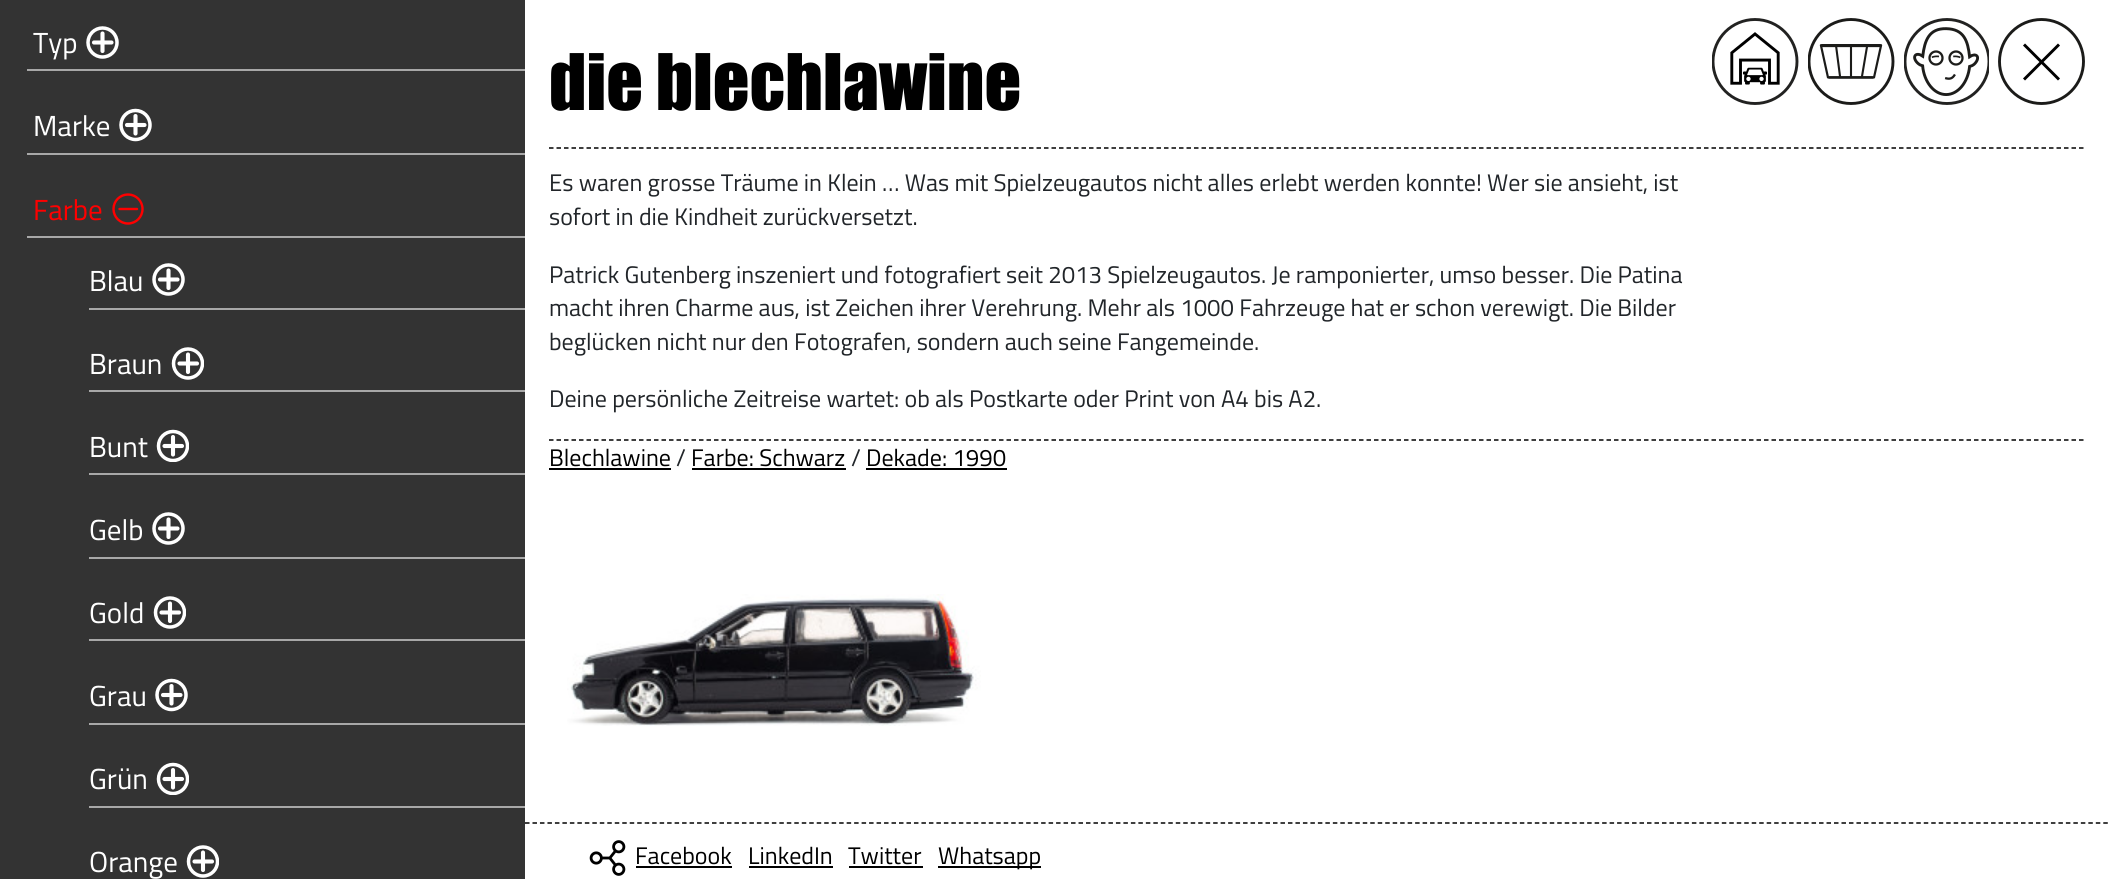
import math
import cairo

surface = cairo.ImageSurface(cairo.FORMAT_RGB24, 2108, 879)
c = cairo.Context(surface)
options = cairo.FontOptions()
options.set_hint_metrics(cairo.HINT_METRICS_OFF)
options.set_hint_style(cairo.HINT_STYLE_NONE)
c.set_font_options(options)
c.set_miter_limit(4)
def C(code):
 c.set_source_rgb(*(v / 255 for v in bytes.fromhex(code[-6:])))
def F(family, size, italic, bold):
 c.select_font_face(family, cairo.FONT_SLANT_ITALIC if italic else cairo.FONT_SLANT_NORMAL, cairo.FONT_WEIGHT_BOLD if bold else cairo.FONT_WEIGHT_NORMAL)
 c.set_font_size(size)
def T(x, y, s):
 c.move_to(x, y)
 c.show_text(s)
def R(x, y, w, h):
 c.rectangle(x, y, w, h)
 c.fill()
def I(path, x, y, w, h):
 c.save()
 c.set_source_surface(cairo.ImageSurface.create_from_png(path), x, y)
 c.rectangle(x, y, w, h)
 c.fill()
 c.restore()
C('ffffff')
c.paint()
C('333333')
R(0,0,525,879)
C('a8a8a8')
R(27,69,498,2)
F('Titillium Web',29,0,0)
C('ffffff')
T(33,53,'Typ')
c.new_path()
c.arc(102.5,42.5,14.5,0,2 * math.pi)
c.set_line_width(3.5)
c.stroke()
c.new_path()
c.move_to(94,42.5)
c.line_to(111.5,42.5)
c.move_to(102.5,51)
c.line_to(102.5,33.5)
c.set_line_width(4.1)
c.set_line_cap(cairo.LINE_CAP_ROUND)
c.stroke()
C('a8a8a8')
R(27,153,498,2)
C('ffffff')
T(33,136,'Marke')
c.new_path()
c.arc(135.5,125,14.5,0,2 * math.pi)
c.set_line_width(3.5)
c.set_line_cap(cairo.LINE_CAP_BUTT)
c.stroke()
c.new_path()
c.move_to(127,125)
c.line_to(144.5,125)
c.move_to(135.5,133.5)
c.line_to(135.5,116)
c.set_line_width(4.1)
c.set_line_cap(cairo.LINE_CAP_ROUND)
c.stroke()
C('a8a8a8')
R(27,236,498,2)
C('ff0000')
T(33,220,'Farbe')
c.new_path()
c.arc(128,209,14.5,0,2 * math.pi)
c.set_line_width(2.4)
c.set_line_cap(cairo.LINE_CAP_BUTT)
c.stroke()
c.new_path()
c.move_to(119.5,209)
c.line_to(137,209)
c.set_line_cap(cairo.LINE_CAP_ROUND)
c.stroke()
C('a8a8a8')
R(89,308,436,2)
C('ffffff')
T(89,291,'Blau')
c.new_path()
c.arc(168.5,279.5,14.5,0,2 * math.pi)
c.set_line_width(3.5)
c.set_line_cap(cairo.LINE_CAP_BUTT)
c.stroke()
c.new_path()
c.move_to(160,279.5)
c.line_to(177.5,279.5)
c.move_to(168.5,288)
c.line_to(168.5,270.5)
c.set_line_width(4.1)
c.set_line_cap(cairo.LINE_CAP_ROUND)
c.stroke()
C('a8a8a8')
R(89,390,436,2)
C('ffffff')
T(89,374,'Braun')
c.save()
c.rectangle(171,347,33,33)
c.clip()
c.arc(188,363.5,14.5,0,2 * math.pi)
c.set_line_width(3.5)
c.set_line_cap(cairo.LINE_CAP_BUTT)
c.stroke()
c.restore()
c.new_path()
c.move_to(179.5,363.5)
c.line_to(197,363.5)
c.move_to(188,372)
c.line_to(188,354.5)
c.stroke()
C('a8a8a8')
R(89,473,436,2)
C('ffffff')
T(89,457,'Bunt')
c.save()
c.rectangle(156,429,33,33)
c.clip()
c.arc(173,446,14.5,0,2 * math.pi)
c.set_line_width(3.5)
c.set_line_cap(cairo.LINE_CAP_BUTT)
c.stroke()
c.restore()
c.new_path()
c.move_to(164.5,446)
c.line_to(182,446)
c.move_to(173,454.5)
c.line_to(173,437)
c.stroke()
C('a8a8a8')
R(89,557,436,2)
C('ffffff')
T(89,540,'Gelb')
c.new_path()
c.arc(168.5,528.5,14.5,0,2 * math.pi)
c.set_line_width(3.5)
c.set_line_cap(cairo.LINE_CAP_BUTT)
c.stroke()
c.new_path()
c.move_to(160,528.5)
c.line_to(177.5,528.5)
c.move_to(168.5,537)
c.line_to(168.5,519.5)
c.set_line_width(4.1)
c.set_line_cap(cairo.LINE_CAP_ROUND)
c.stroke()
C('a8a8a8')
R(89,639,436,2)
C('ffffff')
T(89,623,'Gold')
c.save()
c.rectangle(153,596,33,33)
c.clip()
c.arc(170,612.5,14.5,0,2 * math.pi)
c.set_line_width(3.5)
c.set_line_cap(cairo.LINE_CAP_BUTT)
c.stroke()
c.restore()
c.new_path()
c.move_to(161.5,612.5)
c.line_to(179,612.5)
c.move_to(170,621)
c.line_to(170,603.5)
c.stroke()
C('a8a8a8')
R(89,723,436,2)
C('ffffff')
T(89,706,'Grau')
c.new_path()
c.arc(171.5,695,14.5,0,2 * math.pi)
c.set_line_width(3.5)
c.set_line_cap(cairo.LINE_CAP_BUTT)
c.stroke()
c.new_path()
c.move_to(163,695)
c.line_to(180.5,695)
c.move_to(171.5,703.5)
c.line_to(171.5,686)
c.set_line_width(4.1)
c.set_line_cap(cairo.LINE_CAP_ROUND)
c.stroke()
C('a8a8a8')
R(89,806,436,2)
C('ffffff')
T(89,789,'Grün')
c.save()
c.rectangle(156,762,33,33)
c.clip()
c.arc(173,779,14.5,0,2 * math.pi)
c.set_line_width(3.5)
c.set_line_cap(cairo.LINE_CAP_BUTT)
c.stroke()
c.restore()
c.new_path()
c.move_to(164.5,779)
c.line_to(182,779)
c.move_to(173,787.5)
c.line_to(173,770)
c.stroke()
T(89,872,'Orange')
c.save()
c.rectangle(186,845,33,33)
c.clip()
c.arc(203,861.5,14.5,0,2 * math.pi)
c.set_line_width(3.5)
c.set_line_cap(cairo.LINE_CAP_BUTT)
c.stroke()
c.restore()
c.new_path()
c.move_to(194.5,861.5)
c.line_to(212,861.5)
c.move_to(203,870)
c.line_to(203,852.5)
c.stroke()
I('1.png',1712,18,87,87)
I('2.png',1808,18,87,87)
I('3.png',1904,18,85,87)
c.arc(2041.5,61.5,42,0,2 * math.pi)
C('1b1b19')
c.set_line_width(2.9)
c.set_line_cap(cairo.LINE_CAP_BUTT)
c.stroke()
c.new_path()
c.move_to(2024,79.5)
c.line_to(2059,44.5)
c.move_to(2024,44.5)
c.line_to(2059,79.5)
C('000000')
c.stroke()
c.new_path()
c.move_to(549,148)
c.line_to(2085,148)
c.set_line_width(1.5)
c.set_dash([4.5,3])
c.stroke()
F('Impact',72,0,0)
T(549,110,'die blechlawine')
F('Titillium Web',24,0,0)
C('212529')
T(549,191,'Es waren grosse Träume in Klein … Was mit Spielzeugautos nicht alles erlebt werden konnte! Wer sie ansieht, ist')
T(549,225,'sofort in die Kindheit zurückversetzt.')
T(549,283,'Patrick Gutenberg inszeniert und fotografiert seit 2013 Spielzeugautos. Je ramponierter, umso besser. Die Patina')
T(549,316,'macht ihren Charme aus, ist Zeichen ihrer Verehrung. Mehr als 1000 Fahrzeuge hat er schon verewigt. Die Bilder')
T(549,350,'beglücken nicht nur den Fotografen, sondern auch seine Fangemeinde.')
T(549,407,'Deine persönliche Zeitreise wartet: ob als Postkarte oder Print von A4 bis A2.')
c.new_path()
c.move_to(549,440)
c.line_to(2085,440)
C('000000')
c.stroke()
T(549,466,'Blechlawine')
R(549,468,122,2)
C('212529')
T(676,466,'/')
C('000000')
T(691,466,'Farbe: Schwarz')
R(692,468,154,2)
C('212529')
T(851,466,'/')
C('000000')
T(866,466,'Dekade: 1990')
R(866,468,141,2)
I('4.png',567,594,414,132)
c.new_path()
c.move_to(525,823)
c.line_to(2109,823)
c.set_dash([4.5,2.98])
c.stroke()
I('5.png',589,840,37,36)
T(635,864,'Facebook')
R(636,866,96,2)
T(748,864,'LinkedIn')
R(749,866,84,2)
T(848,864,'Twitter')
R(849,866,74,2)
R(938,866,103,2)
T(938,864,'Whatsapp')
surface.write_to_png('o.png')
